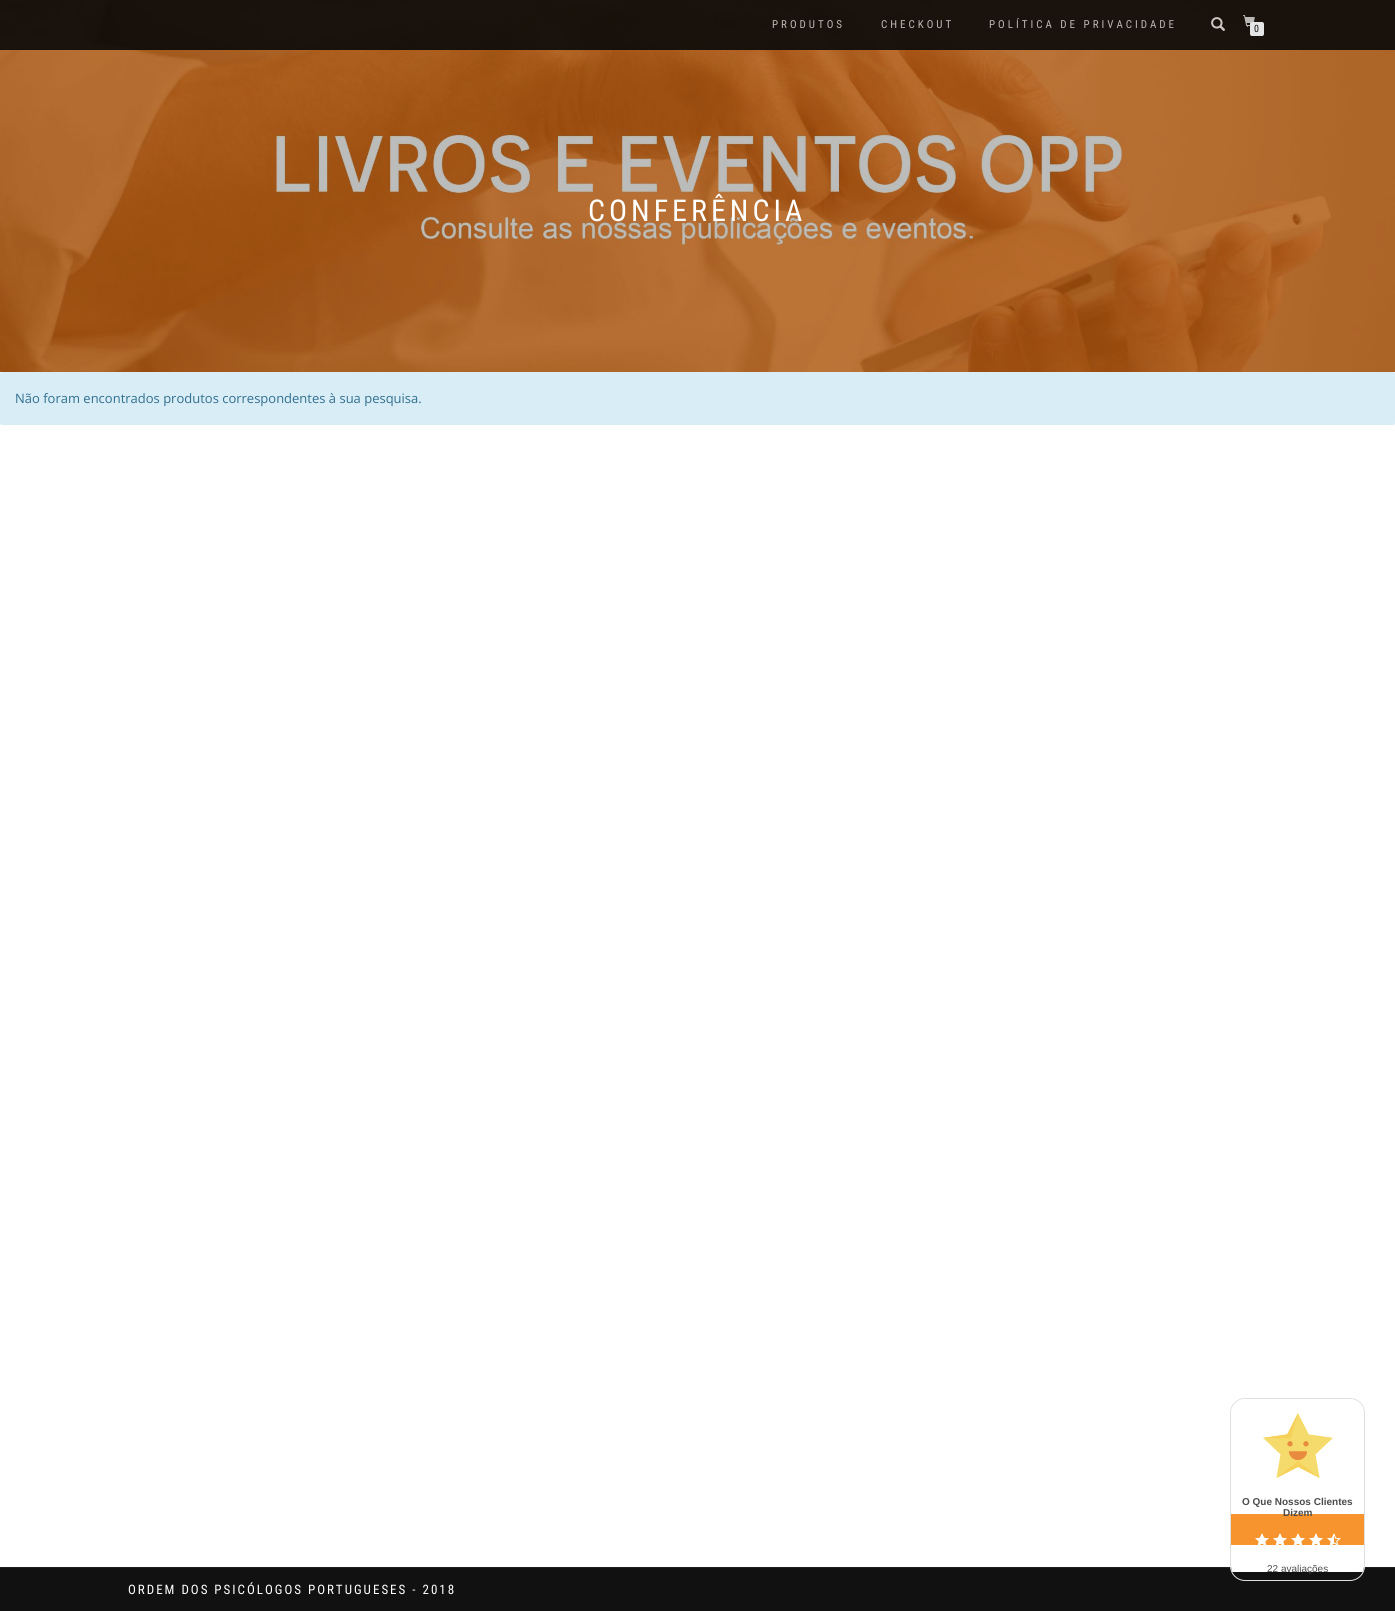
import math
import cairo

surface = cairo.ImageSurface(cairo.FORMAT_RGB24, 1395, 1611)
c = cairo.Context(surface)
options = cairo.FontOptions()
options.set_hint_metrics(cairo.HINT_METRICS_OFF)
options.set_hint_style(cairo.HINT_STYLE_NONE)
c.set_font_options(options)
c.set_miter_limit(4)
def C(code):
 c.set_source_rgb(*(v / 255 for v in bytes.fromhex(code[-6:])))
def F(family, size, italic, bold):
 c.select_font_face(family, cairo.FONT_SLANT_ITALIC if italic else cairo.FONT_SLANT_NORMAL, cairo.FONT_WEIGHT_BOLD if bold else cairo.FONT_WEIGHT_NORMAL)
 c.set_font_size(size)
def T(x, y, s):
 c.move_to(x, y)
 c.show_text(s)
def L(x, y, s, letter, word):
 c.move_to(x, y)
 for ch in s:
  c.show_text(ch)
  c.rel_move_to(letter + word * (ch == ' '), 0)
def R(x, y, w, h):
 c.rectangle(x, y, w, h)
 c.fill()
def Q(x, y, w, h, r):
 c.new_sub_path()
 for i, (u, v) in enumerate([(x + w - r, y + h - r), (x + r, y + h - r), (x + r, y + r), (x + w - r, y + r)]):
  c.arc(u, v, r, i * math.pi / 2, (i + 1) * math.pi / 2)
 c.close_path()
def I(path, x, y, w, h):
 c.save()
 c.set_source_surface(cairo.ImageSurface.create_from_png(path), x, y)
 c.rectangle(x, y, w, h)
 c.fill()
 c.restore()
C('ffffff')
c.paint()
I('3.png',0,0,1395,372)
c.set_source_rgba(0.039,0.039,0.039,0.9)
R(0,0,1395,50)
F('Roboto Condensed',11,0,0)
C('bab8b6')
L(772,28,'PRODUTOS',3,0)
L(881,28,'CHECKOUT',3,0)
L(989,28,'POLÍTICA DE PRIVACIDADE',3,0)
I('1.png',1211,17,15,14)
I('2.png',1243,15,12,12)
C('e5e5e5')
Q(1250,22,14,14,2)
c.fill()
F('Roboto Condensed',10,0,0)
C('111111')
T(1254,32,'0')
F('Roboto Condensed',30,0,0)
C('ffffff')
L(588,221,'CONFERÊNCIA',4,0)
C('d9edf7')
Q(0,372,1395,53,2)
c.fill()
F('Open Sans',13,0,0)
C('31708f')
T(15,403,'Não foram encontrados produtos correspondentes à sua pesquisa.')
C('111111')
R(0,1568,1395,43)
C('202020')
R(0,1567,1395,1)
Q(1230.5,1398.5,134,182,14.5)
C('dfdfdf')
c.set_line_width(1)
c.stroke()
C('ffffff')
c.new_path()
c.move_to(1245,1399)
c.line_to(1350,1399)
c.curve_to(1357.5,1399,1364,1405.5,1364,1413)
c.line_to(1364,1514)
c.line_to(1231,1514)
c.line_to(1231,1413)
c.curve_to(1231,1405.5,1237.5,1399,1245,1399)
c.close_path()
c.fill()
C('f8942d')
R(1231,1514,133,31)
c.save()
Q(1231,1399,133,181,14)
c.clip()
C('ffffff')
R(1231,1545,133,27)
c.restore()
I('4.png',1263,1413,70,65)
F('Liberation Sans',10,0,1)
C('4c4c4c')
T(1242,1505,'O Que Nossos Clientes')
T(1283,1516,'Dizem')
I('5.png',1255,1533,14,12)
I('6.png',1255,1533,14,12)
I('5.png',1273,1533,14,12)
I('6.png',1273,1533,14,12)
I('5.png',1291,1533,14,12)
I('6.png',1291,1533,14,12)
I('5.png',1309,1533,14,12)
I('6.png',1309,1533,14,12)
I('5.png',1327,1533,14,12)
I('7.png',1327,1533,7,12)
F('Liberation Sans',10,0,0)
T(1267,1572,'22 avaliações')
F('Roboto Condensed',13,0,0)
C('ffffff')
L(128,1594,'ORDEM DOS PSICÓLOGOS PORTUGUESES - 2018',2,0)
surface.write_to_png('o.png')
